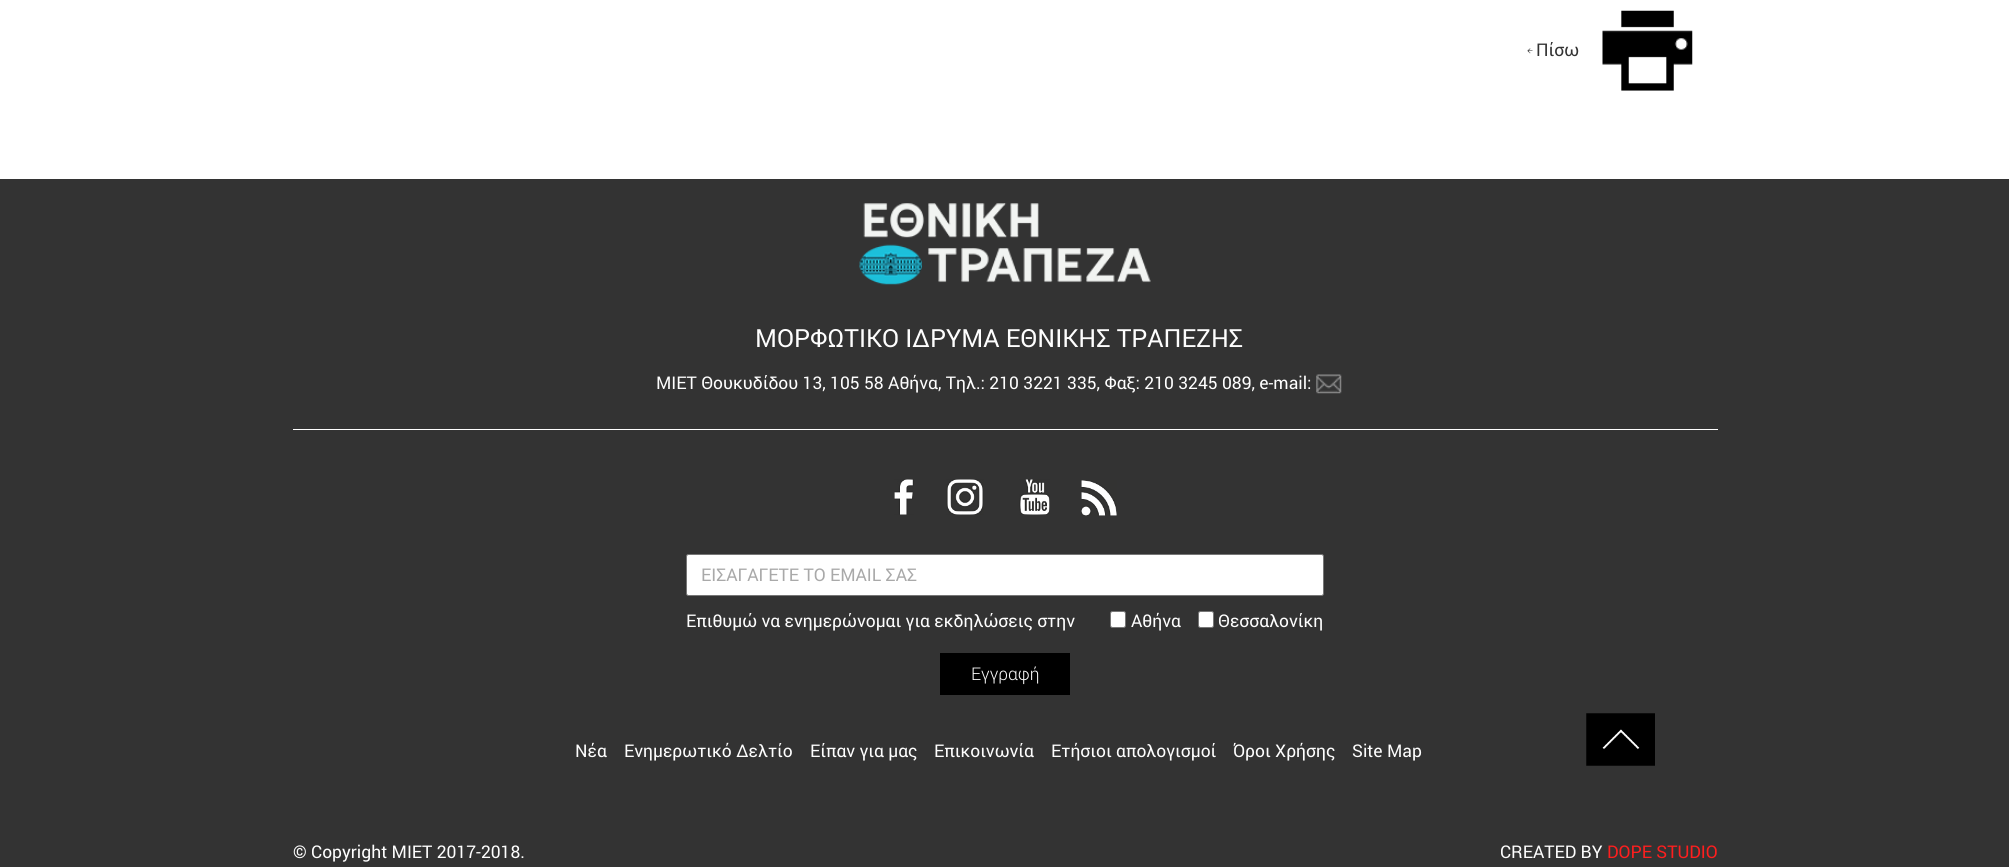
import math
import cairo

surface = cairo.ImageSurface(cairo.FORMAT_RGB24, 2009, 867)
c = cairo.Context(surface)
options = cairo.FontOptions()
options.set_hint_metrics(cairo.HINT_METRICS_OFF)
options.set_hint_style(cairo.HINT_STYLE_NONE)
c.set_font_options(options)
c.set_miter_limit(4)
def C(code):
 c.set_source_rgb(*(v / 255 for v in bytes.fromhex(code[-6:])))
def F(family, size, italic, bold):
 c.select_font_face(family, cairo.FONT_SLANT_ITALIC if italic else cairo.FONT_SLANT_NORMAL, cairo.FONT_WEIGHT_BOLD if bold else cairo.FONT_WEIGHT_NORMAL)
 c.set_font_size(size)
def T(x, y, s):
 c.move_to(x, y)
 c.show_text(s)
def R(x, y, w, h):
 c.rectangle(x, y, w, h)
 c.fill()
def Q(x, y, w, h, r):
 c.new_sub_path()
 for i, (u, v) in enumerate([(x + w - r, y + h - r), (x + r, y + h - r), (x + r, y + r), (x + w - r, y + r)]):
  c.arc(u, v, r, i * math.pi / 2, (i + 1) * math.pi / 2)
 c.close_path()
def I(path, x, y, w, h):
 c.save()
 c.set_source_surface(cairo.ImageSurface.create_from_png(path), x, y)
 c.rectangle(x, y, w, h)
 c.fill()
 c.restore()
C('ffffff')
c.paint()
I('1.png',1527,48,6,6)
F('Roboto',17.5,0,0)
C('333333')
T(1536,56,'Πίσω')
I('2.png',1602,10,91,81)
R(0,179,2009,688)
C('ffffff')
R(293,429,1425,1)
I('3.png',859,203,292,82)
F('Roboto',25,0,0)
C('fefefe')
T(755,347,'ΜΟΡΦΩΤΙΚΟ ΙΔΡΥΜΑ ΕΘΝΙΚΗΣ ΤΡΑΠΕΖΗΣ')
F('Roboto',17.5,0,0)
T(656,389,'MIET Θουκυδίδου 13, 105 58 Αθήνα, Τηλ.: 210 3221 335, Φαξ: 210 3245 089, e-mail:')
I('4.png',1316,374,26,20)
I('5.png',894,479,20,36)
I('6.png',946,479,38,36)
I('7.png',1019,479,31,36)
I('8.png',1081,480,36,36)
C('ffffff')
Q(686.5,554.5,637,41,2)
c.fill_preserve()
C('767676')
c.set_line_width(1)
c.stroke()
C('a9a9a9')
T(701,581,'ΕΙΣΑΓΑΓΕΤΕ ΤΟ EMAIL ΣΑΣ')
C('fefefe')
T(686,627,'Επιθυμώ να ενημερώνομαι για εκδηλώσεις στην')
C('ffffff')
Q(1110.5,611.5,15,16,2)
c.fill_preserve()
C('767676')
c.stroke()
C('fefefe')
T(1131,627,'Αθήνα')
C('ffffff')
Q(1198.5,611.5,15,16,2)
c.fill_preserve()
C('767676')
c.stroke()
C('fefefe')
T(1218,627,'Θεσσαλονίκη')
C('000000')
R(940,653,130,42)
F('Roboto Light',17.5,0,0)
C('fefefe')
T(971,680,'Εγγραφή')
F('Roboto',17.5,0,0)
T(575,757,'Νέα')
T(624,757,'Ενημερωτικό Δελτίο')
T(810,757,'Είπαν για μας')
T(934,757,'Επικοινωνία')
T(1051,757,'Ετήσιοι απολογισμοί')
T(1233,757,'Όροι Χρήσης')
T(1352,757,'Site Map')
I('9.png',1586,713,69,53)
T(293,858,'© Copyright MIET 2017-2018.')
T(1500,858,'CREATED BY')
C('fe1e1e')
T(1607,858,'DOPE STUDIO')
surface.write_to_png('o.png')
